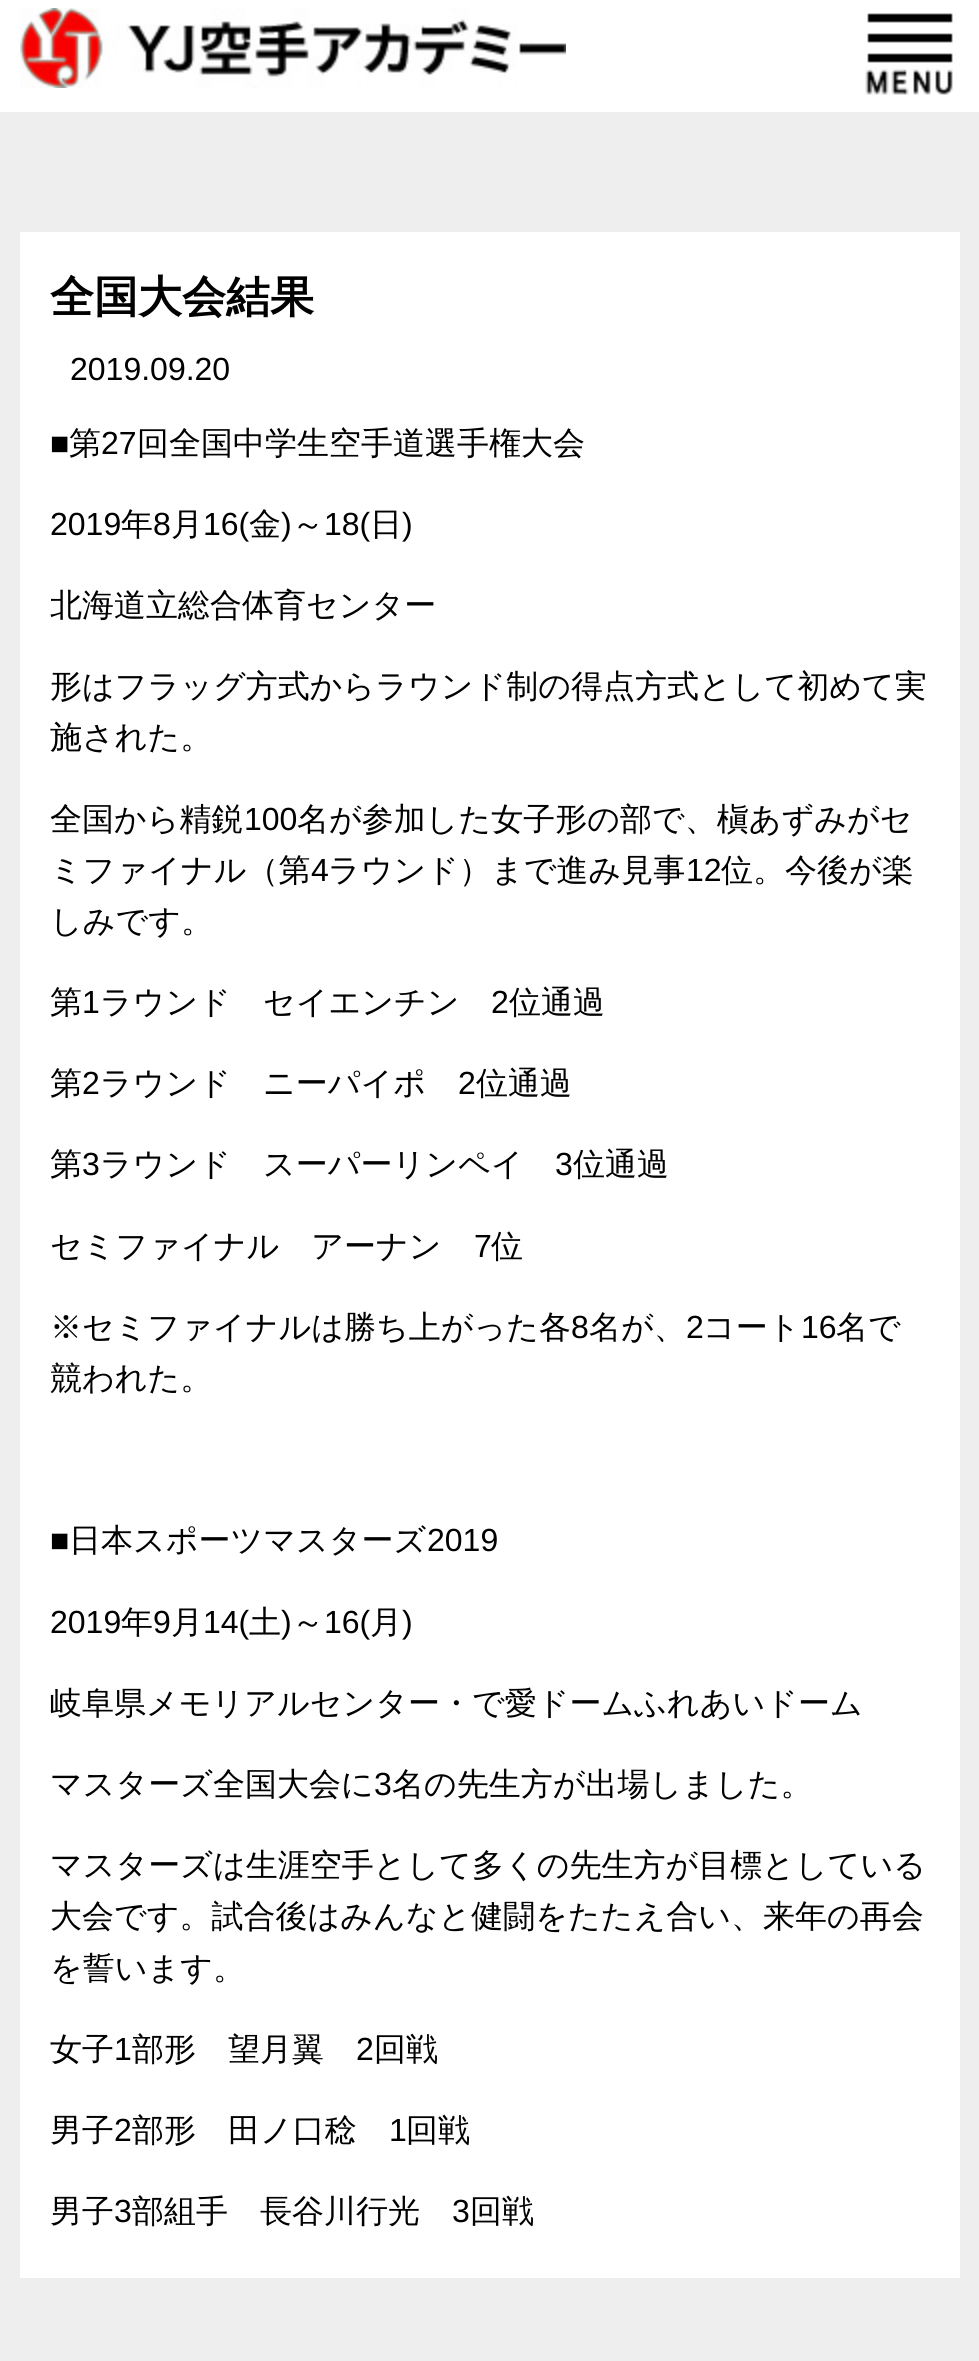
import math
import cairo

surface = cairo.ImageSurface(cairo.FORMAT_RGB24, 979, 2361)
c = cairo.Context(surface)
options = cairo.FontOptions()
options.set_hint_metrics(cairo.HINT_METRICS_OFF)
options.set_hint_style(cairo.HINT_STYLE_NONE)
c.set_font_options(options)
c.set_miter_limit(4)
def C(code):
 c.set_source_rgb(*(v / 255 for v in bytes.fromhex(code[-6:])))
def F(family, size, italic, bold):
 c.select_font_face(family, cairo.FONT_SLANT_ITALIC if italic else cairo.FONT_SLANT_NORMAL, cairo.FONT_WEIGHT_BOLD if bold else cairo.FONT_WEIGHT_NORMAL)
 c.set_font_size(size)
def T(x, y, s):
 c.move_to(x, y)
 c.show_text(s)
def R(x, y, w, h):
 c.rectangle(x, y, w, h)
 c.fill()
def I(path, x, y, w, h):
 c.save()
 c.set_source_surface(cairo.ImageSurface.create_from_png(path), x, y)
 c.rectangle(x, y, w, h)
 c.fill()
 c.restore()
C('ffffff')
c.paint()
I('1.png',20,8,546,80)
I('2.png',865,13,88,82)
C('eeeeee')
R(0,112,979,2249)
C('ffffff')
R(20,232,940,2046)
F('WenQuanYi Zen Hei',44,0,1)
C('000000')
T(50,312,'全国大会結果')
F('Liberation Sans',32,0,0)
T(70,380,'2019.09.20')
T(50,454,'■')
F('WenQuanYi Zen Hei Medium',32,0,0)
T(69,454,'第')
F('Liberation Sans',32,0,0)
T(101,454,'27')
F('WenQuanYi Zen Hei Medium',32,0,0)
T(137,454,'回全国中学生空手道選手権大会')
F('Liberation Sans',32,0,0)
T(50,535,'2019')
F('WenQuanYi Zen Hei Medium',32,0,0)
T(121,535,'年')
F('Liberation Sans',32,0,0)
T(153,535,'8')
F('WenQuanYi Zen Hei Medium',32,0,0)
T(171,535,'月')
F('Liberation Sans',32,0,0)
T(203,535,'16(')
F('WenQuanYi Zen Hei Medium',32,0,0)
T(249,535,'金')
F('Liberation Sans',32,0,0)
T(281,535,')')
F('WenQuanYi Zen Hei Medium',32,0,0)
T(292,535,'～')
F('Liberation Sans',32,0,0)
T(324,535,'18(')
F('WenQuanYi Zen Hei Medium',32,0,0)
T(370,535,'日')
F('Liberation Sans',32,0,0)
T(402,535,')')
F('WenQuanYi Zen Hei Medium',32,0,0)
T(50,616,'北海道立総合体育センター')
T(50,697,'形はフラッグ方式からラウンド制の得点方式として初めて実')
T(50,748,'施された。')
T(50,830,'全国から精鋭')
F('Liberation Sans',32,0,0)
T(244,830,'100')
F('WenQuanYi Zen Hei Medium',32,0,0)
T(297,830,'名が参加した女子形の部で、槇あずみがセ')
T(50,881,'ミファイナル（第')
F('Liberation Sans',32,0,0)
T(311,881,'4')
F('WenQuanYi Zen Hei Medium',32,0,0)
T(328,881,'ラウンド）まで進み見事')
F('Liberation Sans',32,0,0)
T(686,881,'12')
F('WenQuanYi Zen Hei Medium',32,0,0)
T(721,881,'位。今後が楽')
T(50,932,'しみです。')
T(50,1013,'第')
F('Liberation Sans',32,0,0)
T(82,1013,'1')
F('WenQuanYi Zen Hei Medium',32,0,0)
T(100,1013,'ラウンド　セイエンチン')
F('Liberation Sans',32,0,0)
T(491,1013,'2')
F('WenQuanYi Zen Hei Medium',32,0,0)
T(509,1013,'位通過')
T(50,1094,'第')
F('Liberation Sans',32,0,0)
T(82,1094,'2')
F('WenQuanYi Zen Hei Medium',32,0,0)
T(100,1094,'ラウンド　ニーパイポ')
F('Liberation Sans',32,0,0)
T(458,1094,'2')
F('WenQuanYi Zen Hei Medium',32,0,0)
T(476,1094,'位通過')
T(50,1175,'第')
F('Liberation Sans',32,0,0)
T(82,1175,'3')
F('WenQuanYi Zen Hei Medium',32,0,0)
T(100,1175,'ラウンド　スーパーリンペイ')
F('Liberation Sans',32,0,0)
T(555,1175,'3')
F('WenQuanYi Zen Hei Medium',32,0,0)
T(573,1175,'位通過')
T(50,1257,'セミファイナル　アーナン')
F('Liberation Sans',32,0,0)
T(474,1257,'7')
F('WenQuanYi Zen Hei Medium',32,0,0)
T(491,1257,'位')
T(50,1338,'※セミファイナルは勝ち上がった各')
F('Liberation Sans',32,0,0)
T(571,1338,'8')
F('WenQuanYi Zen Hei Medium',32,0,0)
T(589,1338,'名が、')
F('Liberation Sans',32,0,0)
T(686,1338,'2')
F('WenQuanYi Zen Hei Medium',32,0,0)
T(703,1338,'コート')
F('Liberation Sans',32,0,0)
T(801,1338,'16')
F('WenQuanYi Zen Hei Medium',32,0,0)
T(836,1338,'名で')
T(50,1389,'競われた。')
F('Liberation Sans',32,0,0)
T(50,1551,'■')
F('WenQuanYi Zen Hei Medium',32,0,0)
T(69,1551,'日本スポーツマスターズ')
F('Liberation Sans',32,0,0)
T(427,1551,'2019')
T(50,1633,'2019')
F('WenQuanYi Zen Hei Medium',32,0,0)
T(121,1633,'年')
F('Liberation Sans',32,0,0)
T(153,1633,'9')
F('WenQuanYi Zen Hei Medium',32,0,0)
T(171,1633,'月')
F('Liberation Sans',32,0,0)
T(203,1633,'14(')
F('WenQuanYi Zen Hei Medium',32,0,0)
T(249,1633,'土')
F('Liberation Sans',32,0,0)
T(281,1633,')')
F('WenQuanYi Zen Hei Medium',32,0,0)
T(292,1633,'～')
F('Liberation Sans',32,0,0)
T(324,1633,'16(')
F('WenQuanYi Zen Hei Medium',32,0,0)
T(370,1633,'月')
F('Liberation Sans',32,0,0)
T(402,1633,')')
F('WenQuanYi Zen Hei Medium',32,0,0)
T(50,1714,'岐阜県メモリアルセンター・で愛ドームふれあいドーム')
T(50,1795,'マスターズ全国大会に')
F('Liberation Sans',32,0,0)
T(374,1795,'3')
F('WenQuanYi Zen Hei Medium',32,0,0)
T(392,1795,'名の先生方が出場しました。')
T(50,1876,'マスターズは生涯空手として多くの先生方が目標としている')
T(50,1927,'大会です。試合後はみんなと健闘をたたえ合い、来年の再会')
T(50,1979,'を誓います。')
T(50,2060,'女子')
F('Liberation Sans',32,0,0)
T(114,2060,'1')
F('WenQuanYi Zen Hei Medium',32,0,0)
T(132,2060,'部形　望月翼')
F('Liberation Sans',32,0,0)
T(356,2060,'2')
F('WenQuanYi Zen Hei Medium',32,0,0)
T(374,2060,'回戦')
T(50,2141,'男子')
F('Liberation Sans',32,0,0)
T(114,2141,'2')
F('WenQuanYi Zen Hei Medium',32,0,0)
T(132,2141,'部形　田ノ口稔')
F('Liberation Sans',32,0,0)
T(389,2141,'1')
F('WenQuanYi Zen Hei Medium',32,0,0)
T(406,2141,'回戦')
T(50,2222,'男子')
F('Liberation Sans',32,0,0)
T(114,2222,'3')
F('WenQuanYi Zen Hei Medium',32,0,0)
T(132,2222,'部組手　長谷川行光')
F('Liberation Sans',32,0,0)
T(452,2222,'3')
F('WenQuanYi Zen Hei Medium',32,0,0)
T(470,2222,'回戦')
surface.write_to_png('o.png')
